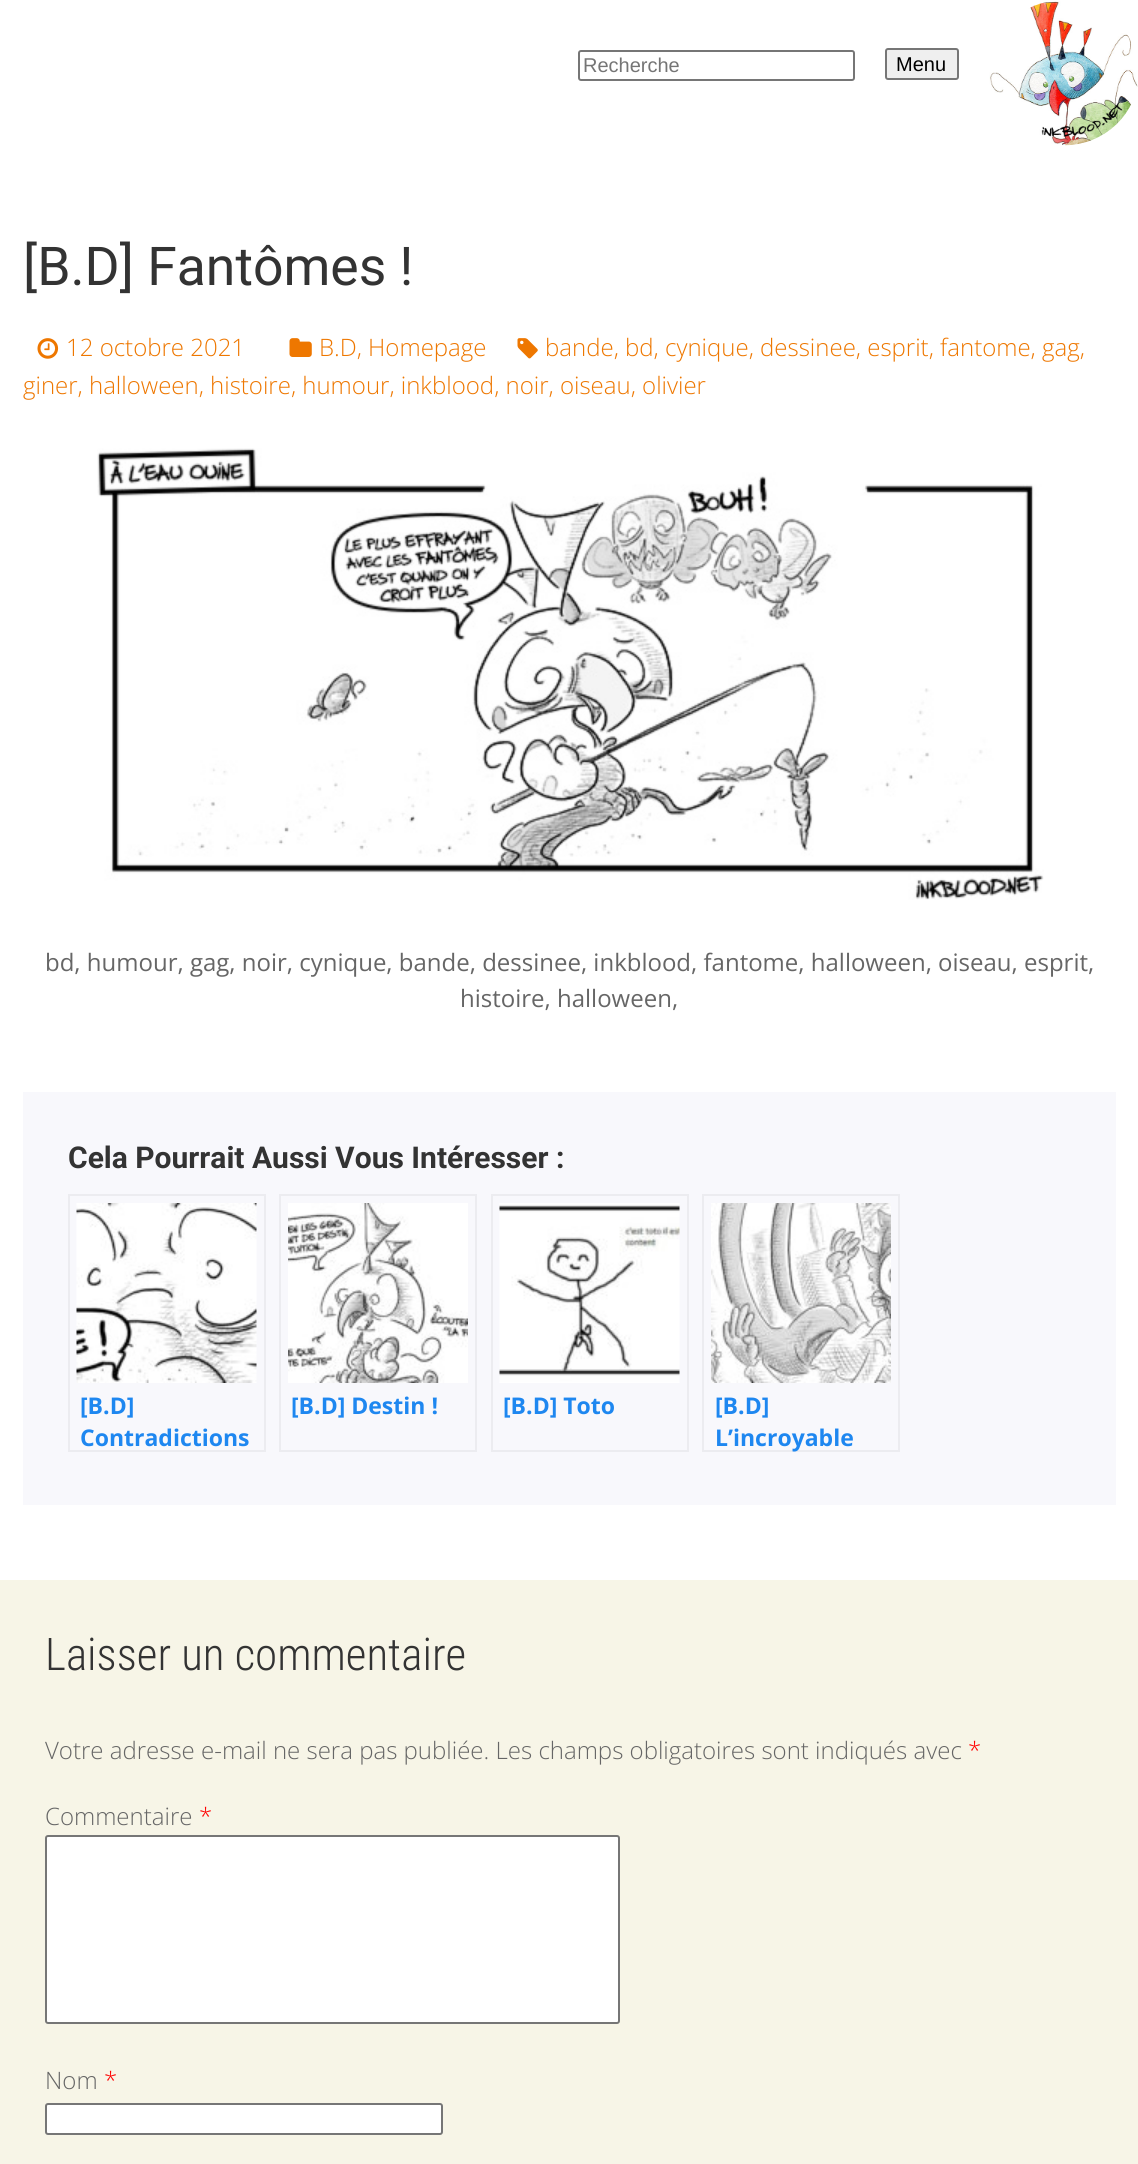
import math
import cairo

surface = cairo.ImageSurface(cairo.FORMAT_RGB24, 1138, 2164)
c = cairo.Context(surface)
options = cairo.FontOptions()
options.set_hint_metrics(cairo.HINT_METRICS_OFF)
options.set_hint_style(cairo.HINT_STYLE_NONE)
c.set_font_options(options)
c.set_miter_limit(4)
def C(code):
 c.set_source_rgb(*(v / 255 for v in bytes.fromhex(code[-6:])))
def F(family, size, italic, bold):
 c.select_font_face(family, cairo.FONT_SLANT_ITALIC if italic else cairo.FONT_SLANT_NORMAL, cairo.FONT_WEIGHT_BOLD if bold else cairo.FONT_WEIGHT_NORMAL)
 c.set_font_size(size)
def T(x, y, s):
 c.move_to(x, y)
 c.show_text(s)
def R(x, y, w, h):
 c.rectangle(x, y, w, h)
 c.fill()
def Q(x, y, w, h, r):
 c.new_sub_path()
 for i, (u, v) in enumerate([(x + w - r, y + h - r), (x + r, y + h - r), (x + r, y + r), (x + w - r, y + r)]):
  c.arc(u, v, r, i * math.pi / 2, (i + 1) * math.pi / 2)
 c.close_path()
def I(path, x, y, w, h):
 c.save()
 c.set_source_surface(cairo.ImageSurface.create_from_png(path), x, y)
 c.rectangle(x, y, w, h)
 c.fill()
 c.restore()
C('ffffff')
c.paint()
Q(579,51,275,29,2)
C('767676')
c.stroke()
F('Liberation Sans',20,0,0)
C('757575')
T(583,72,'Recherche')
C('efefef')
Q(886,49,72,30,2)
c.fill_preserve()
C('767676')
c.stroke()
C('000000')
T(896,71,'Menu')
I('1.png',989,1,149,145)
F('Roboto',53.5,0,0)
C('333333')
T(23,285,'[B.D] Fantômes !')
I('2.png',37,338,22,21)
F('Open Sans Light',24,0,0)
C('ee7700')
T(66,356,'12 octobre 2021')
I('3.png',289,338,23,19)
T(319,356,'B.D, Homepage')
I('4.png',517,338,21,21)
T(545,356,'bande, bd, cynique, dessinee, esprit, fantome, gag,')
T(23,394,'giner, halloween, histoire, humour, inkblood, noir, oiseau, olivier')
I('5.png',97,448,947,452)
F('Open Sans',24,0,0)
C('666666')
T(45,971,'bd, humour, gag, noir, cynique, bande, dessinee, inkblood, fantome, halloween, oiseau, esprit,')
T(460,1007,'histoire, halloween,')
C('f8f8fc')
R(23,1092,1093,413)
F('Roboto',30,0,1)
C('333333')
T(68,1168,'Cela Pourrait Aussi Vous Intéresser :')
c.rectangle(69,1195,196,256)
C('ececf0')
c.stroke()
I('6.png',76,1203,181,180)
F('Open Sans',23,0,1)
C('1e87f0')
T(80,1414,'[B.D]')
T(80,1446,'Contradictions')
c.rectangle(280,1195,196,256)
C('ececf0')
c.stroke()
I('7.png',288,1203,180,180)
C('1e87f0')
T(291,1414,'[B.D] Destin !')
c.rectangle(492,1195,196,256)
C('ececf0')
c.stroke()
I('8.png',499,1203,181,180)
C('1e87f0')
T(503,1414,'[B.D] Toto')
c.rectangle(703,1195,196,256)
C('ececf0')
c.stroke()
I('9.png',711,1203,180,180)
C('1e87f0')
T(715,1414,'[B.D]')
T(715,1446,'L’incroyable')
C('f7f5e7')
R(0,1580,1138,584)
F('Roboto Condensed Light',45,0,0)
C('333333')
T(45,1670,'Laisser un commentaire')
F('Open Sans Light',24,0,0)
C('666666')
T(45,1759,'Votre adresse e-mail ne sera pas publiée. Les champs obligatoires sont indiqués avec')
C('ff0000')
T(968,1759,'*')
C('666666')
T(45,1825,'Commentaire')
C('ff0000')
T(199,1825,'*')
C('ffffff')
Q(46,1836,573,187,2)
c.fill_preserve()
C('767676')
c.stroke()
C('666666')
T(45,2089,'Nom')
C('ff0000')
T(104,2089,'*')
C('ffffff')
Q(46,2104,396,30,2)
c.fill_preserve()
C('767676')
c.stroke()
surface.write_to_png('o.png')
